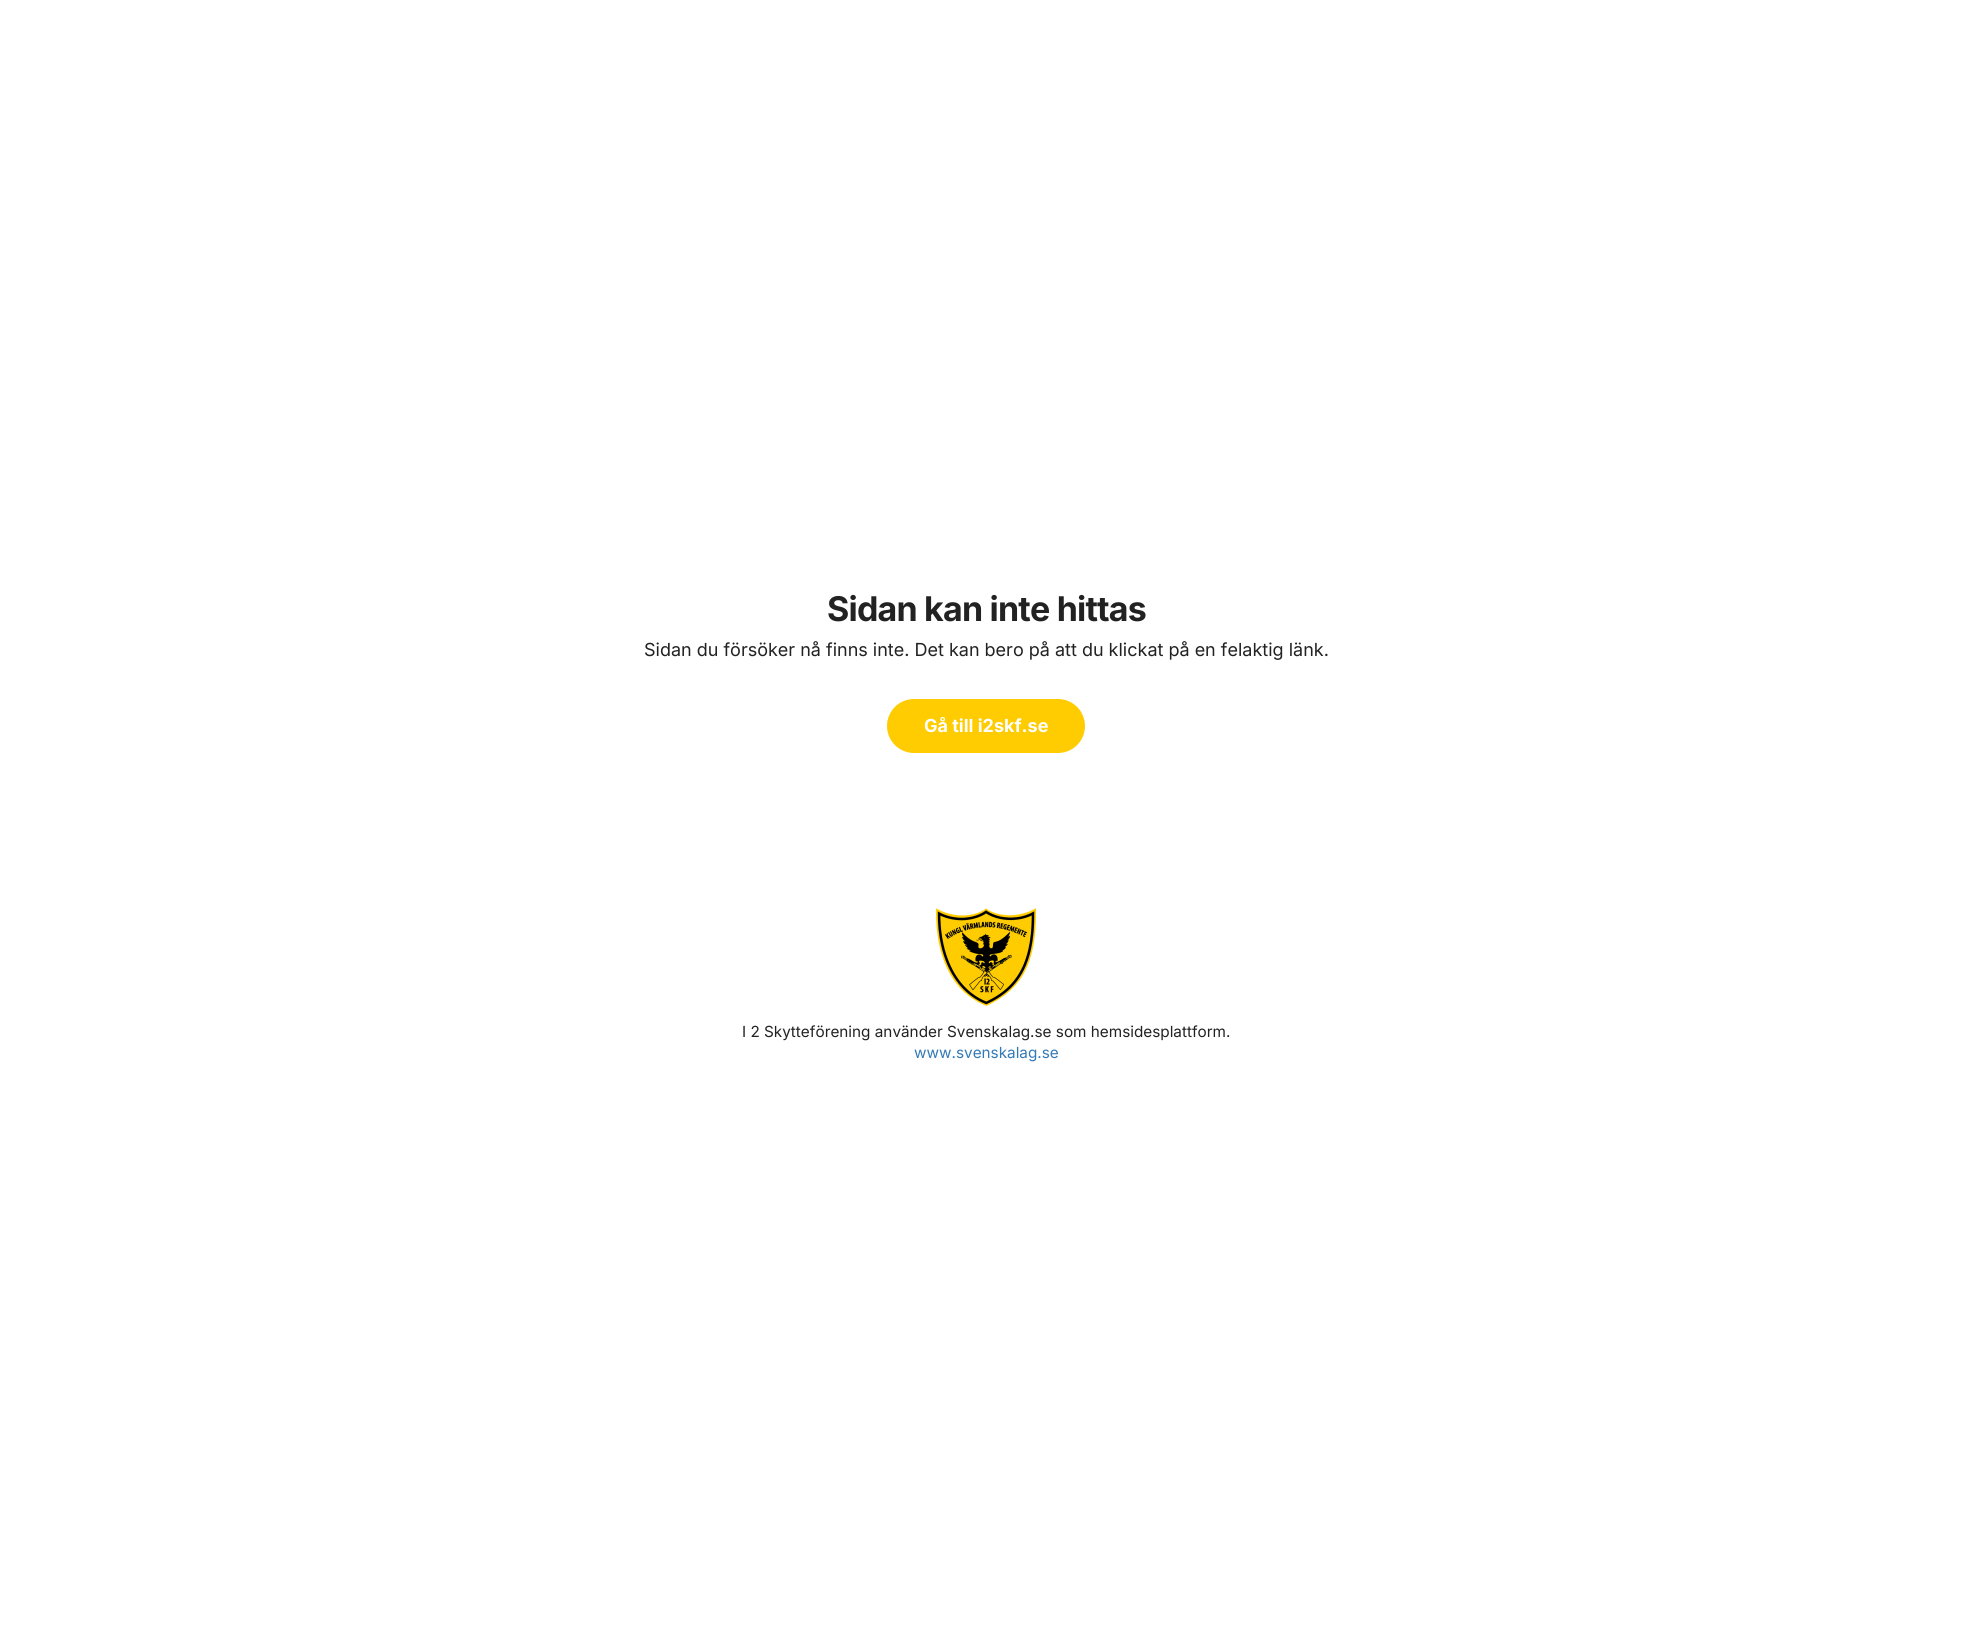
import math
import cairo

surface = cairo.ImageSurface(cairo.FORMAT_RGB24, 1972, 1644)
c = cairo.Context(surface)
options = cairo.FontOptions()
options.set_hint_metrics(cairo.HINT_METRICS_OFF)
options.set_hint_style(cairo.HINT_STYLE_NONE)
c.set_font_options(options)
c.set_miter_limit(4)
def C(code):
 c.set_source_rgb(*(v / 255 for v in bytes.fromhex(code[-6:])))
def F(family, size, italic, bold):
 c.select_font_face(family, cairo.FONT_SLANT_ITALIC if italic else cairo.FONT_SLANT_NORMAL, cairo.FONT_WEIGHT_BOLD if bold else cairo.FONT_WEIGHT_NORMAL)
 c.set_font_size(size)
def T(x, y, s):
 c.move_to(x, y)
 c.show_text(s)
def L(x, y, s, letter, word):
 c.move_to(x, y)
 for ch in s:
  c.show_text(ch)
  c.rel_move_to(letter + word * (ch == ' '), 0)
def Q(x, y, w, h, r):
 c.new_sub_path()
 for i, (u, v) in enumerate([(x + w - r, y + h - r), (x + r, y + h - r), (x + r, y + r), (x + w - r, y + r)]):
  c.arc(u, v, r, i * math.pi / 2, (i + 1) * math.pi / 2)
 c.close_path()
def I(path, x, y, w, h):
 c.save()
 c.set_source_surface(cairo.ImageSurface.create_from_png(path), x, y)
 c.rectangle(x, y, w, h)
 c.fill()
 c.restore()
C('ffffff')
c.paint()
F('Inter',34,0,1)
C('222222')
L(827,621,'Sidan kan inte hittas',-.8,0)
F('Inter',18,0,0)
T(644,656,'Sidan du försöker nå finns inte. Det kan bero på att du klickat på en felaktig länk.')
C('fecc00')
Q(888,700,196,52,26)
c.fill_preserve()
c.stroke()
F('Inter',18,0,1)
C('ffffff')
T(924,732,'Gå till i2skf.se')
I('1.png',936,908,100,98)
F('Inter',15.3,0,0)
C('222222')
T(742,1037,'I 2 Skytteförening använder Svenskalag.se som hemsidesplattform.')
C('337ab7')
T(914,1058,'www.svenskalag.se')
surface.write_to_png('o.png')
